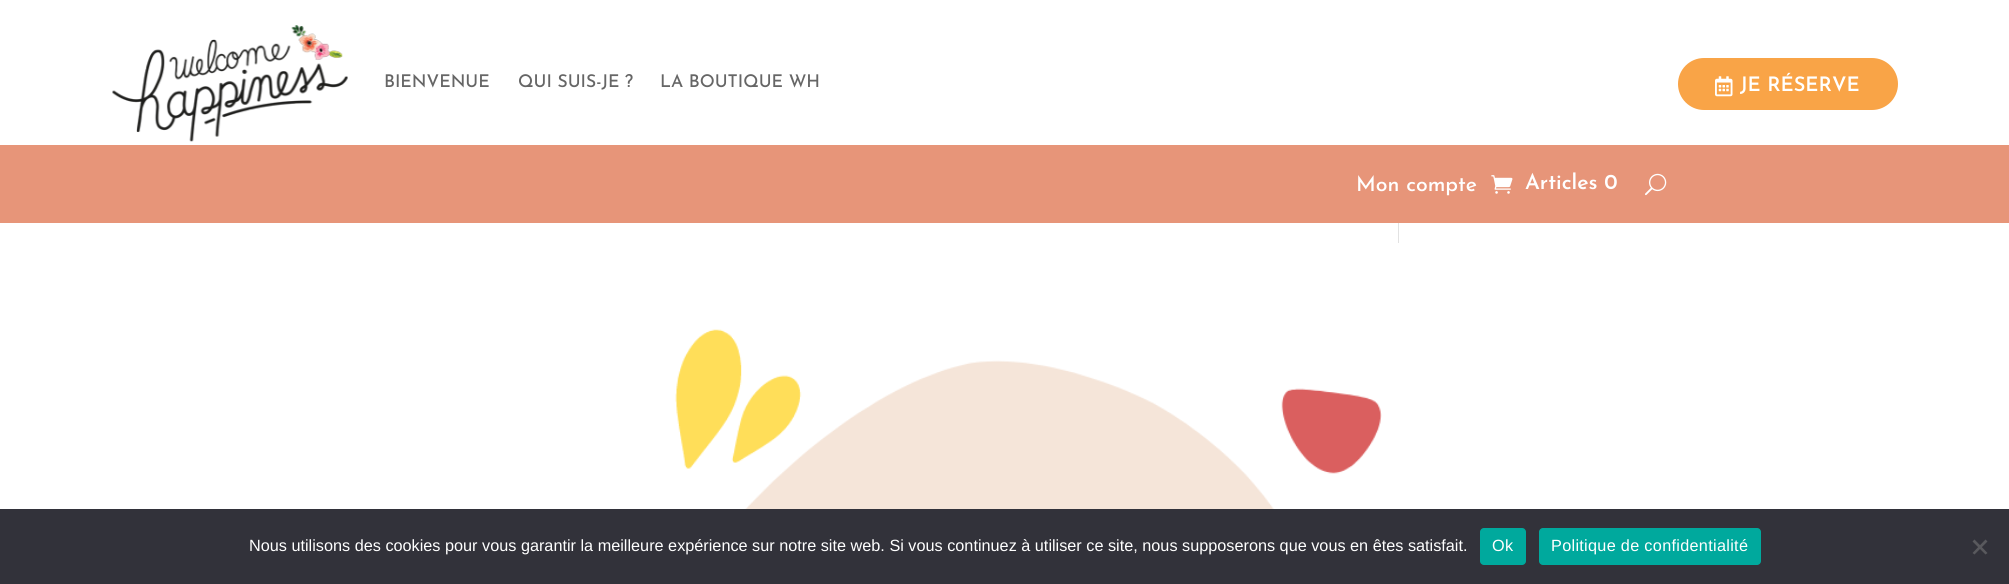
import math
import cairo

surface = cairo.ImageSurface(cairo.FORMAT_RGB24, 2009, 584)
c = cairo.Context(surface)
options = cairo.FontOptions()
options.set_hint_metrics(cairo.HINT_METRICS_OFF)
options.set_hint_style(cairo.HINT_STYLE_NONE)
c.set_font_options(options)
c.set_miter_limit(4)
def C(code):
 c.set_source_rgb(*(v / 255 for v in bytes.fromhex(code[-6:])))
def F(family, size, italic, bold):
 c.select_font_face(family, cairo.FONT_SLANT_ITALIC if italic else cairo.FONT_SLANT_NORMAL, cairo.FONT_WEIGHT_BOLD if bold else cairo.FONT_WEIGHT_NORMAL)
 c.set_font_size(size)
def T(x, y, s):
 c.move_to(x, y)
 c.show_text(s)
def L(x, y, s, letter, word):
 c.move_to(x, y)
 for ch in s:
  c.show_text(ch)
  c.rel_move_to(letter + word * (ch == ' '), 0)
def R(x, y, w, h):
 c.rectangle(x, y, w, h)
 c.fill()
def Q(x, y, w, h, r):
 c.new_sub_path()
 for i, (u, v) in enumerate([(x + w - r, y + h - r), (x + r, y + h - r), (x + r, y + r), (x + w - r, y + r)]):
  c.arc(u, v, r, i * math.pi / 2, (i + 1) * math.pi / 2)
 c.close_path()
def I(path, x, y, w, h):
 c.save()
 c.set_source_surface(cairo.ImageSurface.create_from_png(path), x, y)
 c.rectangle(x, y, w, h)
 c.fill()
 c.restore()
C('ffffff')
c.paint()
I('1.png',112,25,236,117)
F('Josefin Sans Medium',17.5,0,0)
C('666666')
T(384,87,'BIENVENUE')
T(518,87,'QUI SUIS-JE ?')
T(660,87,'LA BOUTIQUE WH')
C('f9a447')
Q(1678,58,220,52,26)
c.fill()
I('2.png',1715,76,18,21)
F('Josefin Sans SemiBold',20,0,0)
C('ffffff')
T(1740,91,'JE RÉSERVE')
C('e79579')
R(0,145,2009,78)
F('Josefin Sans Medium',21.25,0,0)
C('ffffff')
T(1356,191,'Mon compte')
I('3.png',1491,175,22,19)
F('Josefin Sans SemiBold',21.25,0,0)
T(1525,189,'Articles 0')
I('4.png',1645,173,22,23)
C('e2e2e2')
R(1398,223,1,20)
I('5.png',675,329,707,180)
C('32323a')
R(0,509,2009,75)
F('Liberation Sans',16.25,0,0)
C('ffffff')
T(249,551,'Nous utilisons des cookies pour vous garantir la meilleure expérience sur notre site web. Si vous continuez à utiliser ce site, nous supposerons que vous en êtes satisfait.')
C('00a99d')
Q(1480,528,46,37,4)
c.fill()
C('ffffff')
L(1492,551,'Ok',.3,0)
C('00a99d')
Q(1539,528,222,37,4)
c.fill()
C('ffffff')
L(1551,551,'Politique de confidentialité',.3,0)
C('59595d')
c.new_path()
c.move_to(1985.5,539.5)
c.line_to(1987.5,541.5)
c.line_to(1974.5,554.5)
c.line_to(1972.5,553)
c.close_path()
c.fill()
c.new_path()
c.move_to(1972.5,541.5)
c.line_to(1974.5,539.5)
c.line_to(1987.5,553)
c.line_to(1985.5,554.5)
c.close_path()
c.fill()
surface.write_to_png('o.png')
